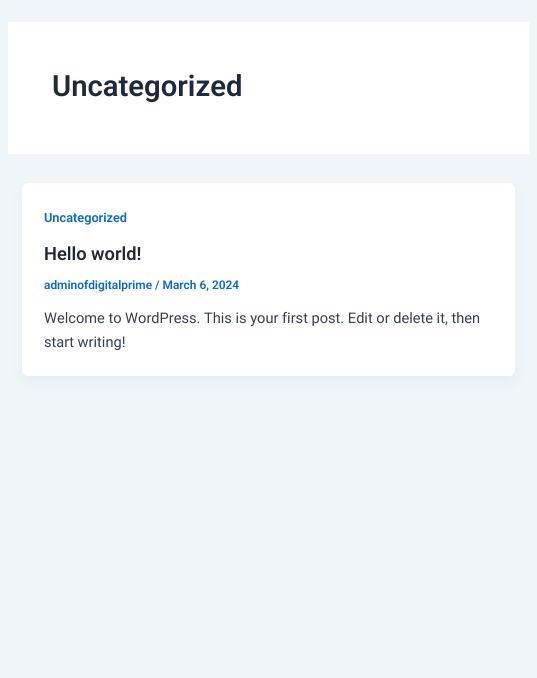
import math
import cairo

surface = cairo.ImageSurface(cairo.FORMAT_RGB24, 537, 678)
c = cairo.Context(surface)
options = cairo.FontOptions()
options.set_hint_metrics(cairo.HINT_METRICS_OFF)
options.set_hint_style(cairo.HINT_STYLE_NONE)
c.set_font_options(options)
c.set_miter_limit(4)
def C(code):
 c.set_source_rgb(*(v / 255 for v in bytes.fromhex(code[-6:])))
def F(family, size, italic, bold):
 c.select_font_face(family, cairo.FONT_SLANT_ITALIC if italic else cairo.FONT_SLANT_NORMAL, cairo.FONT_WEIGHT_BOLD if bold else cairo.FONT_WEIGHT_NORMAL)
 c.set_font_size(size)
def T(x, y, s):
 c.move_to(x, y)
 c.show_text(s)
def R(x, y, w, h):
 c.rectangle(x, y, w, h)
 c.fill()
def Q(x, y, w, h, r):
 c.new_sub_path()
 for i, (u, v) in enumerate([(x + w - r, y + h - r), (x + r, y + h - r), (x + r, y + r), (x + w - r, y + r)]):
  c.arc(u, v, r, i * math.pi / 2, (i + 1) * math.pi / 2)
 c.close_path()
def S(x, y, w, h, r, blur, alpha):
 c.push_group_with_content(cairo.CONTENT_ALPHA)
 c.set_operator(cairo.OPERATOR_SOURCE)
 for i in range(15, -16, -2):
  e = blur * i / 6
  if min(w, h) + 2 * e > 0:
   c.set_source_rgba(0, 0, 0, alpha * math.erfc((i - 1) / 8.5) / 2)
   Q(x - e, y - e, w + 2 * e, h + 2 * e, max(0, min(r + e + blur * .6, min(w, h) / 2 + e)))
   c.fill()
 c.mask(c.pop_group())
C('f0f5fa')
c.paint()
C('ffffff')
R(8,22,521,132)
F('Roboto SemiBold',29.25,0,0)
C('1e293b')
T(52,96,'Uncategorized')
C('101828')
S(24,191,489,189,4,7.5,.05)
C('ffffff')
Q(22,183,493,193,6)
c.fill()
F('Roboto SemiBold',12.75,0,0)
C('046bd2')
T(44,222,'Uncategorized')
F('Roboto SemiBold',18.25,0,0)
C('1e293b')
T(44,260,'Hello world!')
F('Roboto SemiBold',11.9,0,0)
C('046bd2')
T(44,289,'adminofdigitalprime / March 6, 2024')
F('Roboto',14.6,0,0)
C('334155')
T(44,323,'Welcome to WordPress. This is your first post. Edit or delete it, then')
T(44,347,'start writing!')
surface.write_to_png('o.png')
